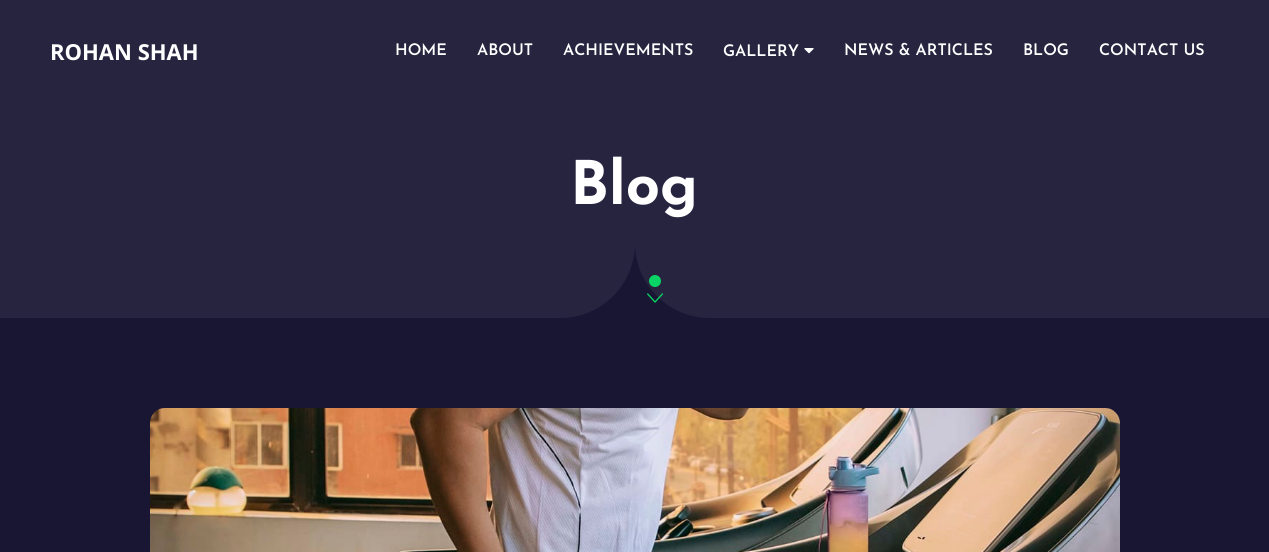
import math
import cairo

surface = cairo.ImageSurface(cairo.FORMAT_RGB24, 1269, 552)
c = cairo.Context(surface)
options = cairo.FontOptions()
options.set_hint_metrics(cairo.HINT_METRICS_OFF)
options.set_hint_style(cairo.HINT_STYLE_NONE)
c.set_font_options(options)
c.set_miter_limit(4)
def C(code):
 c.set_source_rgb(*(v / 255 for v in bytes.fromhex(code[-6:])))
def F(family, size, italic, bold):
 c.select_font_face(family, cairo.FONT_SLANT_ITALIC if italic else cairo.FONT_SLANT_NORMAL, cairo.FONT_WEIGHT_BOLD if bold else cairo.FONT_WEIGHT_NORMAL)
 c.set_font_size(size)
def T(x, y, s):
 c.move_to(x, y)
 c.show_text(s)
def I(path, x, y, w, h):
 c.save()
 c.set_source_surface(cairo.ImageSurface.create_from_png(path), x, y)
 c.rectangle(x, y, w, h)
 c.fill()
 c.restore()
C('191634')
c.paint()
C('272440')
c.new_path()
c.move_to(0,0)
c.line_to(635,0)
c.line_to(635,243)
c.curve_to(635,284.5,601.5,318,560,318)
c.line_to(0,318)
c.close_path()
c.fill()
F('Open Sans',22,0,1)
C('ffffff')
T(50,60,'ROHAN SHAH')
F('Josefin Sans SemiBold',16,0,0)
T(395,55,'HOME')
T(477,55,'ABOUT')
C('272440')
c.new_path()
c.move_to(635,0)
c.line_to(1269,0)
c.line_to(1269,318)
c.line_to(710,318)
c.curve_to(668.5,318,635,284.5,635,243)
c.close_path()
c.fill()
C('ffffff')
T(563,55,'ACHIEVEMENTS')
T(723,56,'GALLERY')
I('1.png',804,48,10,6)
T(844,55,'NEWS & ARTICLES')
T(1023,55,'BLOG')
T(1099,55,'CONTACT US')
F('Josefin Sans',60,0,1)
T(570,204,'Blog')
C('08d565')
c.new_path()
c.arc(655,281,6,0,2 * math.pi)
c.fill()
I('2.png',647,293,16,10)
I('3.png',150,408,970,144)
surface.write_to_png('o.png')
